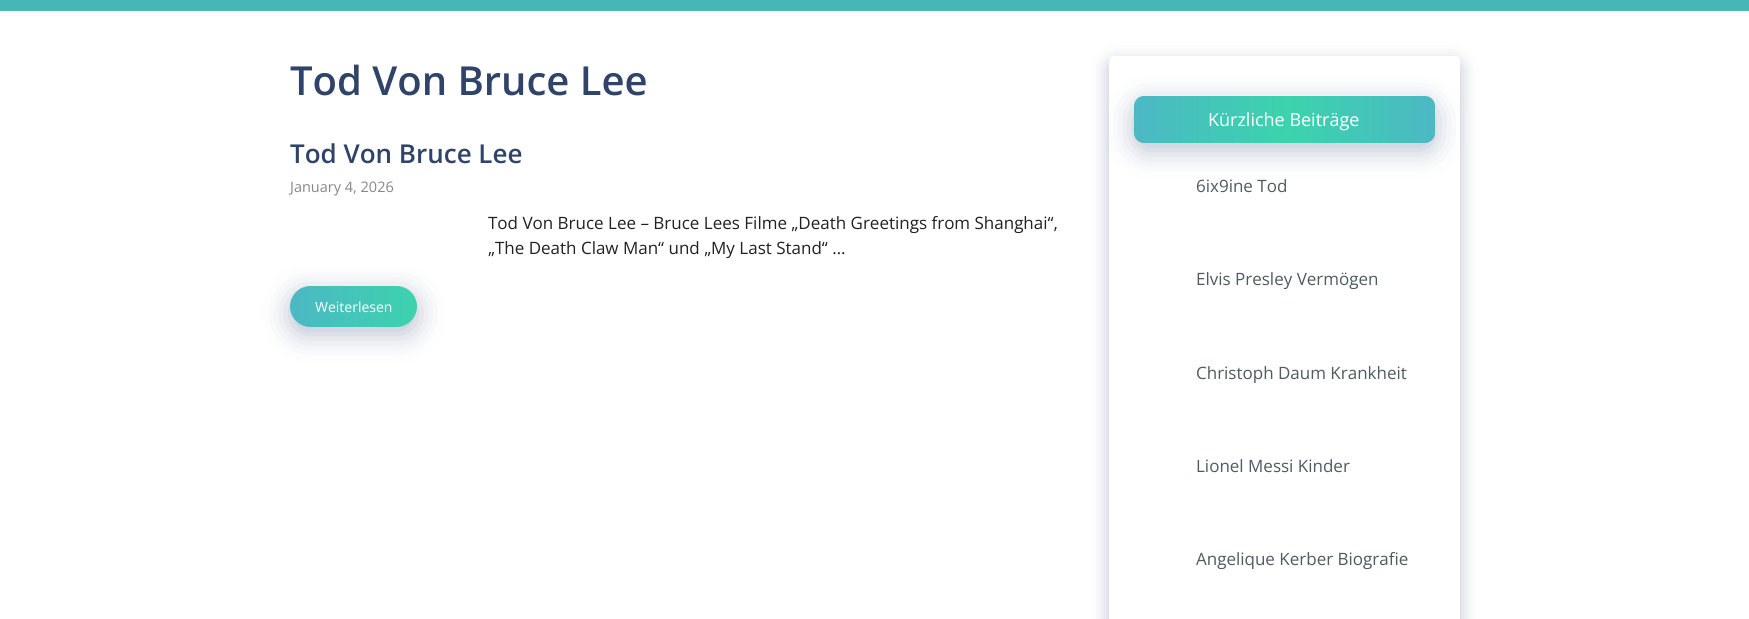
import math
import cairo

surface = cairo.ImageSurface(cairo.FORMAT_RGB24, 1749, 619)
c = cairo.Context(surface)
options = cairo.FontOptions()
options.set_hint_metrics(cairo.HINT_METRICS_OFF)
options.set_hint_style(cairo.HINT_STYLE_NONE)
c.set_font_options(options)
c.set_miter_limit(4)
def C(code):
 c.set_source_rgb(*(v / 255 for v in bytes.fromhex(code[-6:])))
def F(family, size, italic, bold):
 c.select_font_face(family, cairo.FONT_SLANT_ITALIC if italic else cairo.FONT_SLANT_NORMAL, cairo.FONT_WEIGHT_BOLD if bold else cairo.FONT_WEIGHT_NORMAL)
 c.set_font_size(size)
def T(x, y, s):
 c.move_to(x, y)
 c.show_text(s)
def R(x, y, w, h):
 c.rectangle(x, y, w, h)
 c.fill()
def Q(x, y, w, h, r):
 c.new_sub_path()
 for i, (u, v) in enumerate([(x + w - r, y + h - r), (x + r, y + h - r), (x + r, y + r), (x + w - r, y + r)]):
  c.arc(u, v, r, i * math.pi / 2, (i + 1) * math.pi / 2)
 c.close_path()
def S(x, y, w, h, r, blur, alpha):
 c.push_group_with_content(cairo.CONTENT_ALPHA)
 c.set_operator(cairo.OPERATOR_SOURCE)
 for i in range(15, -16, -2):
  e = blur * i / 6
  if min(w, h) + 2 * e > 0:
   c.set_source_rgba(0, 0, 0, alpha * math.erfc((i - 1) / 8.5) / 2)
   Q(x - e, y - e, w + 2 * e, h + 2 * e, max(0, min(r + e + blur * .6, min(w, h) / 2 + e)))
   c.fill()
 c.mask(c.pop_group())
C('ffffff')
c.paint()
C('46b6b7')
R(0,0,1749,11)
F('Open Sans SemiBold',40,0,0)
C('2f4468')
T(290,95,'Tod Von Bruce Lee')
F('Open Sans SemiBold',26,0,0)
T(290,163,'Tod Von Bruce Lee')
F('Open Sans',14.5,0,0)
C('878787')
T(290,192,'January 4, 2026')
F('Open Sans',17,0,0)
C('212121')
T(488,229,'Tod Von Bruce Lee – Bruce Lees Filme „Death Greetings from Shanghai“,')
T(488,254,'„The Death Claw Man“ und „My Last Stand“ …')
C('172b63')
S(290,293,127,41,20.5,14,.3)
gradient = cairo.LinearGradient(290,307,544,307)
gradient.add_color_stop_rgba(0,0.298,0.722,0.769,1)
gradient.add_color_stop_rgba(.51,0.235,0.827,0.678,1)
gradient.add_color_stop_rgba(1,0.298,0.722,0.769,1)
c.set_source(gradient)
Q(290,286,127,41,20.5)
c.fill()
F('Open Sans',14,0,0)
C('ffffff')
T(315,312,'Weiterlesen')
C('172b63')
S(1109,62,351,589,5,9,.3)
C('ffffff')
Q(1109,56,351,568,5)
c.fill()
C('172b63')
S(1134,103,301,47,10,14,.3)
gradient = cairo.LinearGradient(1134,120,1435,119)
gradient.add_color_stop_rgba(0,0.298,0.722,0.769,1)
gradient.add_color_stop_rgba(.51,0.235,0.827,0.678,1)
gradient.add_color_stop_rgba(1,0.298,0.722,0.769,1)
c.set_source(gradient)
Q(1134,96,301,47,10)
c.fill()
F('Open Sans',18,0,0)
C('ffffff')
T(1208,126,'Kürzliche Beiträge')
F('Open Sans',17,0,0)
C('4e5b60')
T(1196,192,'6ix9ine Tod')
T(1196,285,'Elvis Presley Vermögen')
T(1196,379,'Christoph Daum Krankheit')
T(1196,472,'Lionel Messi Kinder')
T(1196,565,'Angelique Kerber Biografie')
surface.write_to_png('o.png')
